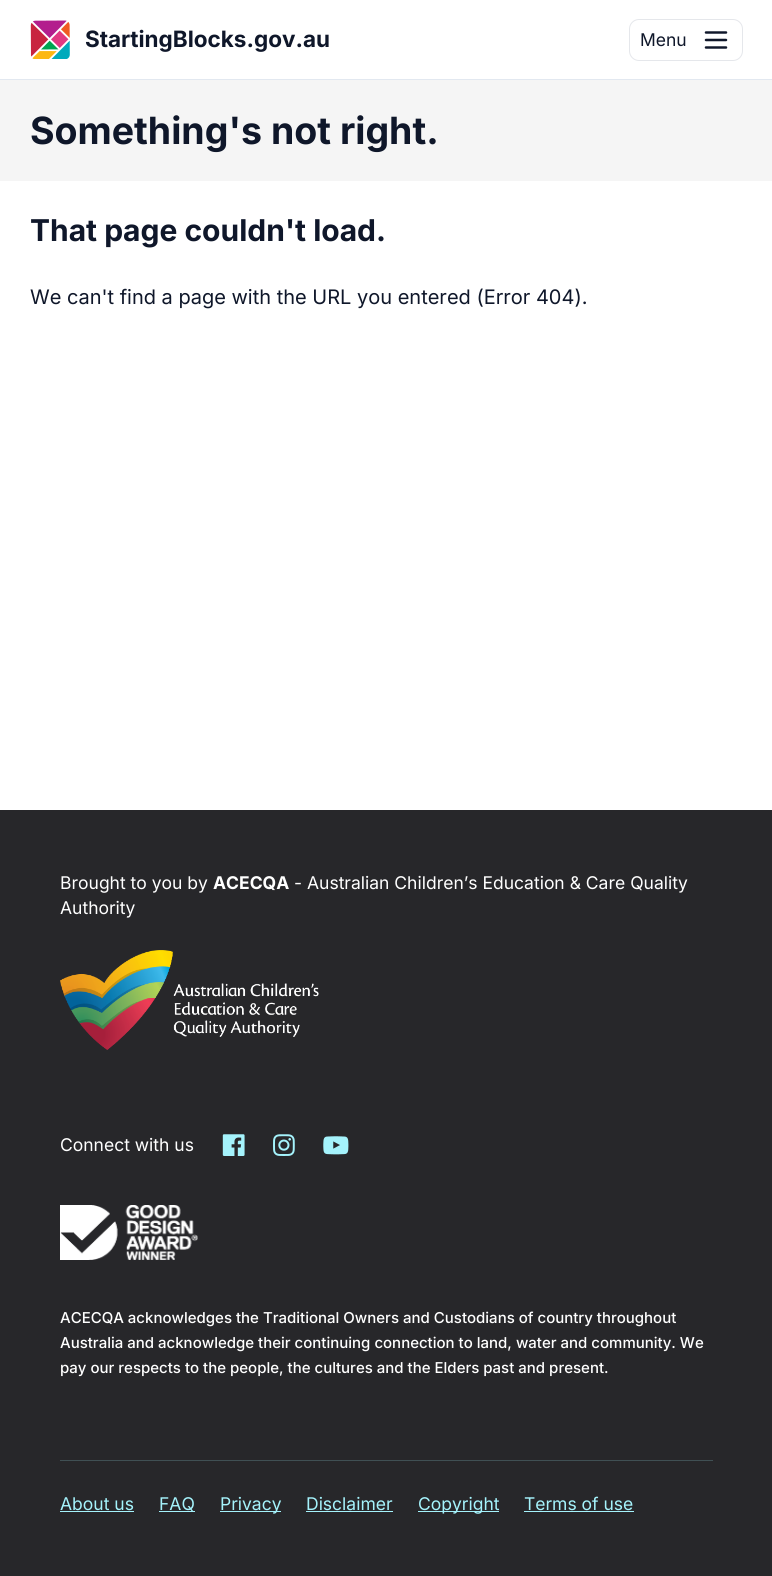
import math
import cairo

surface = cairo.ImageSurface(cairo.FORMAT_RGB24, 772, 1576)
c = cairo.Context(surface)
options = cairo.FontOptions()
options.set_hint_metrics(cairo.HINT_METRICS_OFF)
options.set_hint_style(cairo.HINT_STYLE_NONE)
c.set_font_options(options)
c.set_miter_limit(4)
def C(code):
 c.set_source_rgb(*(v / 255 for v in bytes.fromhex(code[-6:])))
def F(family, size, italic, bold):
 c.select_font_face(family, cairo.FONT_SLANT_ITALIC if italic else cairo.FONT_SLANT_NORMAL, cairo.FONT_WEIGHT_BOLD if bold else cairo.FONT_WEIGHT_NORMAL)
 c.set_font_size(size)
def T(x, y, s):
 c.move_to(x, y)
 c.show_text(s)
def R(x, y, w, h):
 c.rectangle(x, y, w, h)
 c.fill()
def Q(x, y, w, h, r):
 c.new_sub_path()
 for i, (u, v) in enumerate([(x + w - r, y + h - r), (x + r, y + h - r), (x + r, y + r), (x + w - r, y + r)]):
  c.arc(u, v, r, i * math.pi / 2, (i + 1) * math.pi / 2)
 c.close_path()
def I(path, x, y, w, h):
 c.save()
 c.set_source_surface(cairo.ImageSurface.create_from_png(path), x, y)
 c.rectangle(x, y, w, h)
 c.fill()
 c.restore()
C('ffffff')
c.paint()
C('e2e8f0')
R(0,79,772,1)
I('1.png',30,20,40,39)
F('Inter',22.5,0,1)
C('0f172a')
T(85,47,'StartingBlocks.gov.au')
Q(629.5,19.5,113,41,9.5)
C('e5e7eb')
c.set_line_width(1)
c.stroke()
F('Inter',17.5,0,0)
C('0f172a')
T(640,46,'Menu')
c.new_path()
c.move_to(706,40)
c.line_to(726,40)
c.move_to(706,32.5)
c.line_to(726,32.5)
c.move_to(706,47.5)
c.line_to(726,47.5)
c.set_line_width(2.5)
c.set_line_cap(cairo.LINE_CAP_ROUND)
c.set_line_join(cairo.LINE_JOIN_ROUND)
c.stroke()
C('f5f5f5')
R(0,80,772,101)
F('Inter',37.5,0,1)
C('0f172a')
T(30,144,'Something\'s not right.')
F('Inter',30,0,1)
T(30,241,'That page couldn\'t load.')
F('Inter',20,0,0)
T(30,304,'We can\'t find a page with the URL you entered (Error 404).')
C('27272a')
R(0,810,772,766)
F('Inter',17.5,0,0)
C('ffffff')
T(60,889,'Brought to you by')
F('Inter',17.5,0,1)
T(213,889,'ACECQA')
F('Inter',17.5,0,0)
T(294,889,'- Australian Children’s Education & Care Quality')
T(60,914,'Authority')
I('2.png',60,950,259,100)
T(60,1151,'Connect with us')
I('3.png',222,1134,23,22)
I('4.png',273,1134,22,22)
I('5.png',323,1136,26,19)
I('6.png',60,1205,138,55)
F('Inter Medium',15,0,0)
T(60,1323,'ACECQA acknowledges the Traditional Owners and Custodians of country throughout')
T(60,1348,'Australia and acknowledge their continuing connection to land, water and community. We')
T(60,1373,'pay our respects to the people, the cultures and the Elders past and present.')
C('405054')
R(60,1460,653,1)
F('Inter',17.5,0,0)
C('a5f3fc')
T(60,1510,'About us')
R(60,1511,74,1)
R(159,1511,36,1)
T(159,1510,'FAQ')
R(220,1511,61,1)
T(220,1510,'Privacy')
T(306,1510,'Disclaimer')
R(306,1511,87,1)
R(418,1511,81,1)
T(418,1510,'Copyright')
T(524,1510,'Terms of use')
R(524,1511,110,1)
surface.write_to_png('o.png')
